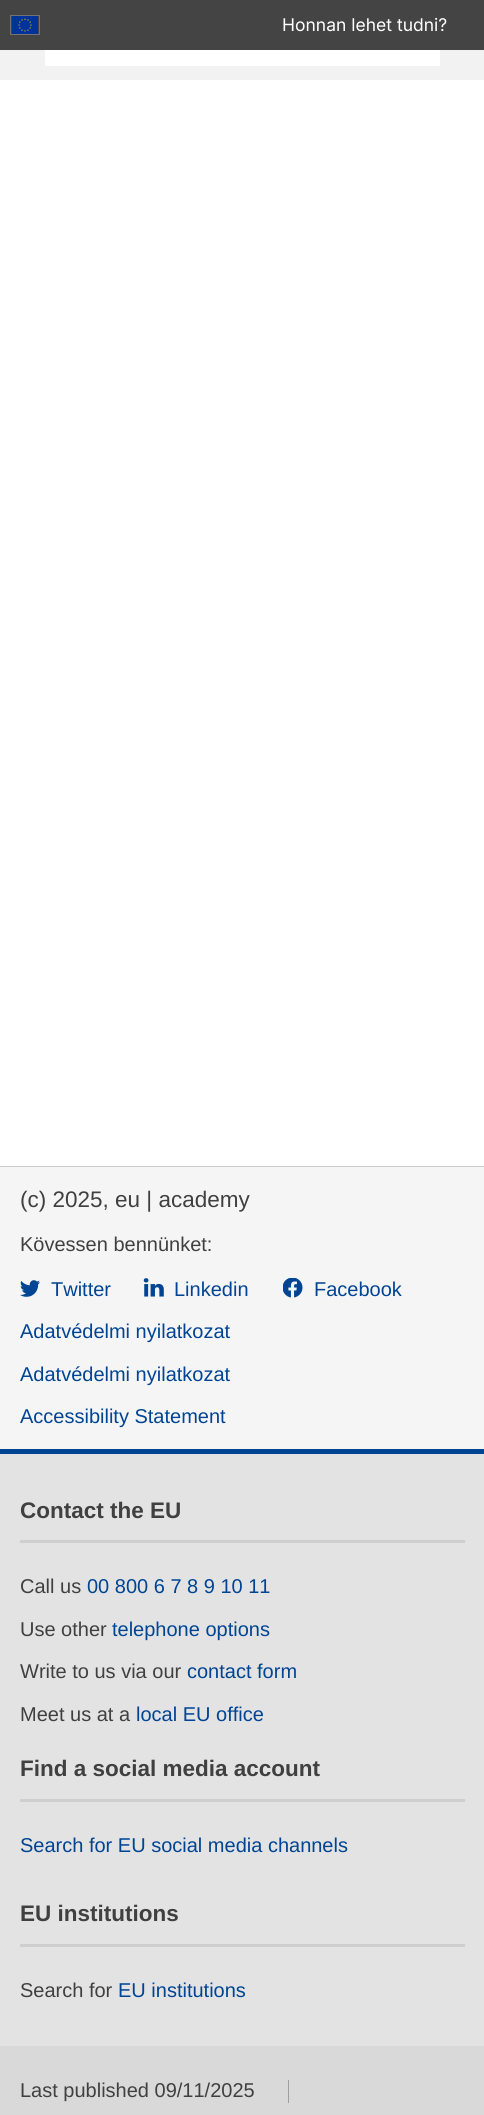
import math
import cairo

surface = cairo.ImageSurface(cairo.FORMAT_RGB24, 484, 2115)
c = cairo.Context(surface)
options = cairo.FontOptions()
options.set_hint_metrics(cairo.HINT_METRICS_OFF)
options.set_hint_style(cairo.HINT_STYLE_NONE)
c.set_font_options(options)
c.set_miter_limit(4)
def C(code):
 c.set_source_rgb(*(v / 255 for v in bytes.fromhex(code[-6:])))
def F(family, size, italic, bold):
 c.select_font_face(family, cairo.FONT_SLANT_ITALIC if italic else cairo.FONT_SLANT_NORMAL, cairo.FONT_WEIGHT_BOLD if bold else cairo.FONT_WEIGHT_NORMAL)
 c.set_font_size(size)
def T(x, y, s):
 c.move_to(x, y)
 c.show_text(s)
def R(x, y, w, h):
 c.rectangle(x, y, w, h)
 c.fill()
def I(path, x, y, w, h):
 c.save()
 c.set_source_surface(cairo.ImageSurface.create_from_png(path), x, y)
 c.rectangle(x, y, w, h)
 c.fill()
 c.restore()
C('ffffff')
c.paint()
C('444444')
R(0,0,484,50)
c.rectangle(10.5,15.5,29,19)
C('737373')
c.set_line_width(1)
c.stroke()
I('1.png',12,16,26,18)
F('Inter',17.5,0,0)
C('ffffff')
T(282,31,'Honnan lehet tudni?')
C('f2f2f2')
R(0,50,484,30)
C('ffffff')
R(45,50,395,16)
C('f5f5f5')
R(0,1167,484,282)
C('cecdcd')
R(0,1166,484,1)
F('Liberation Sans',22.5,0,0)
C('404040')
T(20,1207,'(c) 2025, eu | academy')
F('Liberation Sans',20,0,0)
T(20,1251,'Kövessen bennünket:')
I('2.png',20,1280,20,17)
C('004494')
T(51,1296,'Twitter')
I('3.png',143,1278,21,19)
T(174,1296,'Linkedin')
I('4.png',283,1278,20,20)
T(314,1296,'Facebook')
T(20,1338,'Adatvédelmi nyilatkozat')
T(20,1381,'Adatvédelmi nyilatkozat')
T(20,1423,'Accessibility Statement')
R(0,1449,484,5)
C('e3e3e3')
R(0,1454,484,592)
C('cfcfcf')
R(20,1540,445,3)
F('Liberation Sans',22.5,0,1)
C('404040')
T(20,1518,'Contact the EU')
F('Liberation Sans',20,0,0)
T(20,1593,'Call us')
C('004494')
T(87,1593,'00 800 6 7 8 9 10 11')
C('404040')
T(20,1636,'Use other')
C('004494')
T(112,1636,'telephone options')
C('404040')
T(20,1678,'Write to us via our')
C('004494')
T(187,1678,'contact form')
C('404040')
T(20,1721,'Meet us at a')
C('004494')
T(136,1721,'local EU office')
C('cfcfcf')
R(20,1799,445,3)
F('Liberation Sans',22.5,0,1)
C('404040')
T(20,1776,'Find a social media account')
F('Liberation Sans',20,0,0)
C('004494')
T(20,1852,'Search for EU social media channels')
C('cfcfcf')
R(20,1944,445,3)
F('Liberation Sans',22.5,0,1)
C('404040')
T(20,1921,'EU institutions')
F('Liberation Sans',20,0,0)
T(20,1997,'Search for')
C('004494')
T(118,1997,'EU institutions')
C('d9d9d9')
R(0,2046,484,69)
C('9f9f9f')
R(288,2080,1,23)
C('404040')
T(20,2097,'Last published 09/11/2025')
surface.write_to_png('o.png')
